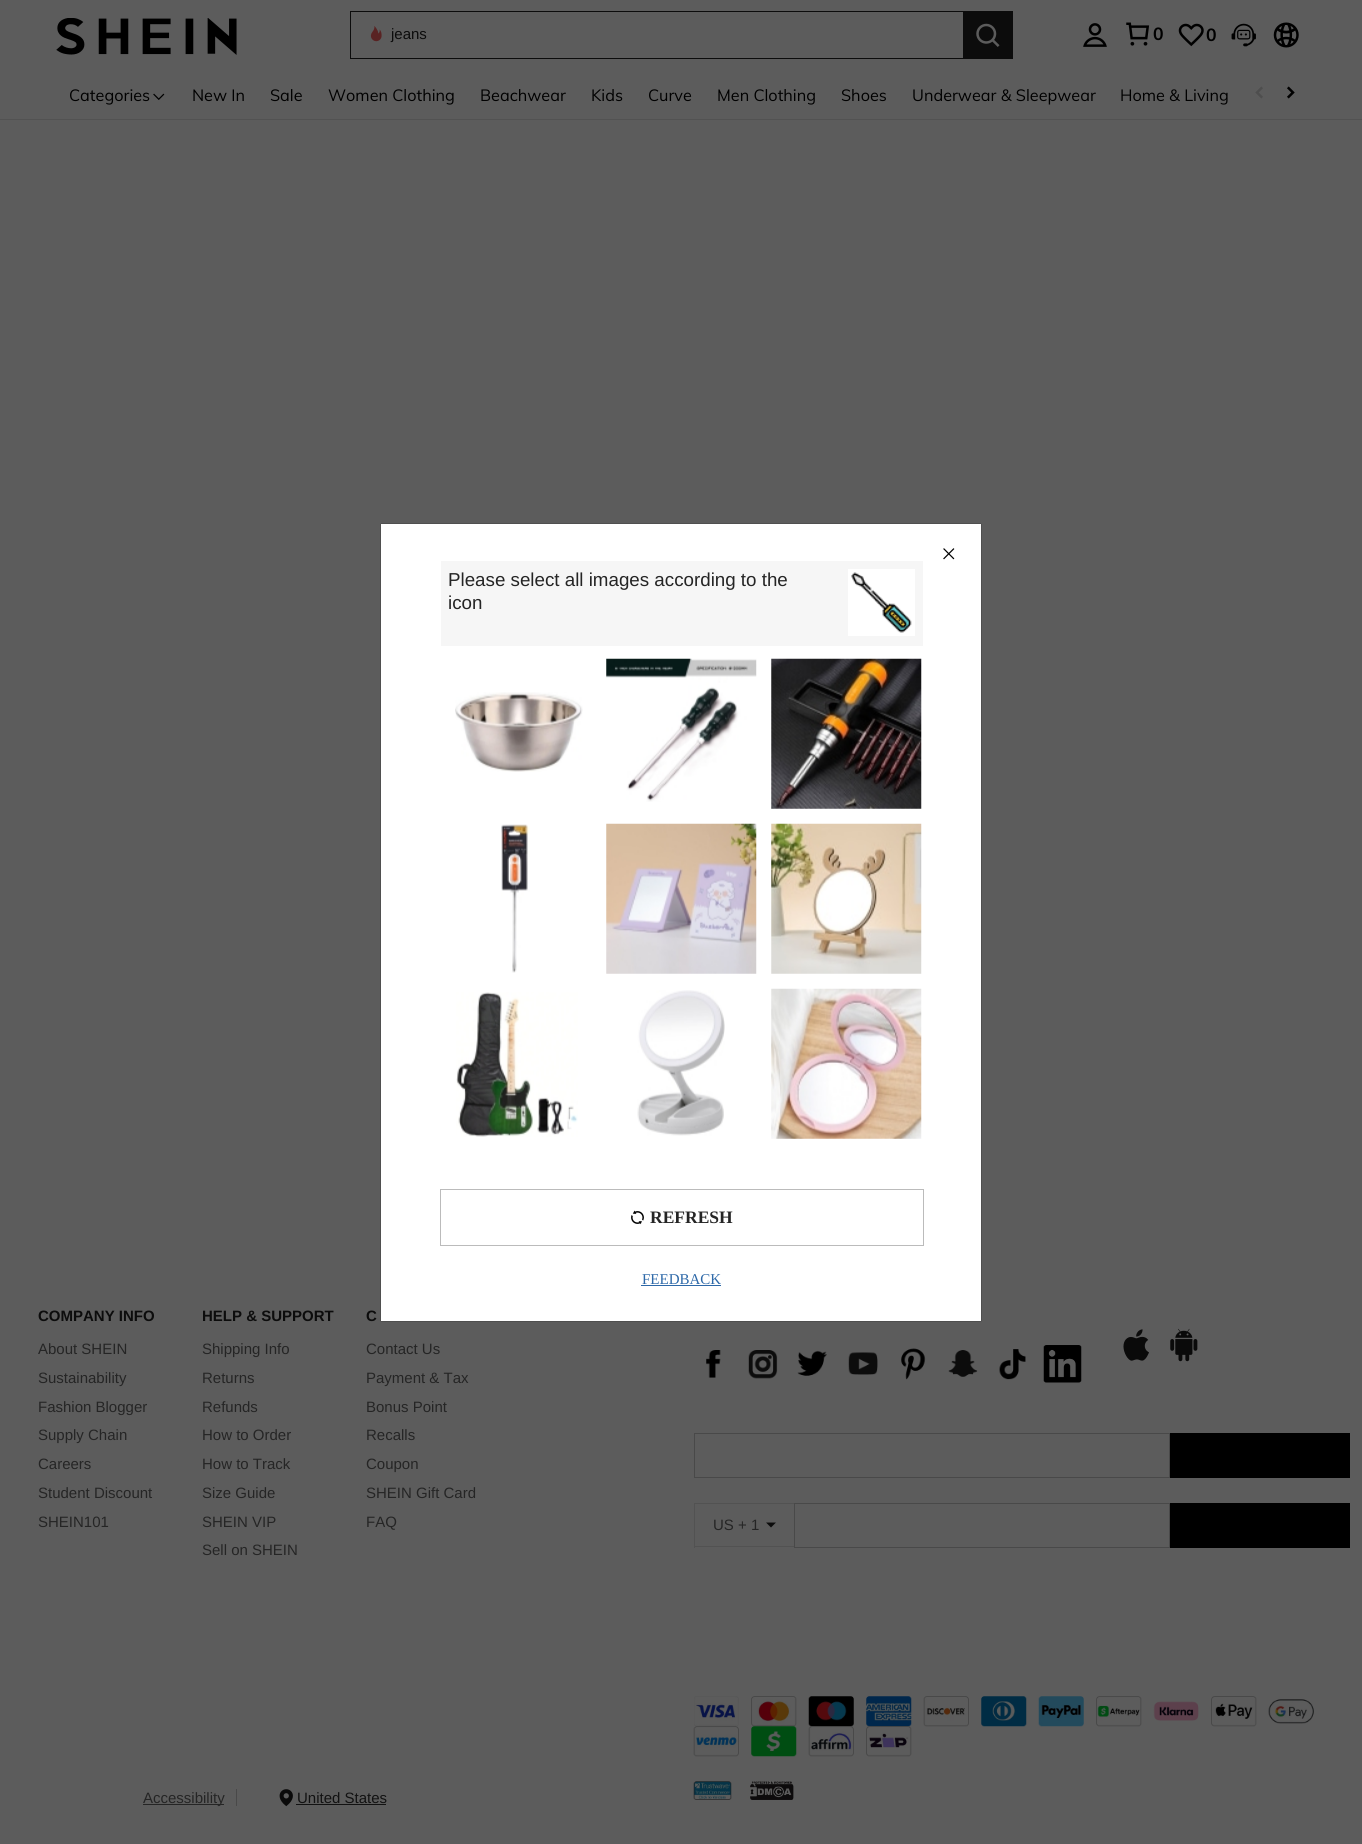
import math
import cairo

surface = cairo.ImageSurface(cairo.FORMAT_RGB24, 1362, 1844)
c = cairo.Context(surface)
options = cairo.FontOptions()
options.set_hint_metrics(cairo.HINT_METRICS_OFF)
options.set_hint_style(cairo.HINT_STYLE_NONE)
c.set_font_options(options)
c.set_miter_limit(4)
def C(code):
 c.set_source_rgb(*(v / 255 for v in bytes.fromhex(code[-6:])))
def F(family, size, italic, bold):
 c.select_font_face(family, cairo.FONT_SLANT_ITALIC if italic else cairo.FONT_SLANT_NORMAL, cairo.FONT_WEIGHT_BOLD if bold else cairo.FONT_WEIGHT_NORMAL)
 c.set_font_size(size)
def T(x, y, s):
 c.move_to(x, y)
 c.show_text(s)
def R(x, y, w, h):
 c.rectangle(x, y, w, h)
 c.fill()
def Q(x, y, w, h, r):
 c.new_sub_path()
 for i, (u, v) in enumerate([(x + w - r, y + h - r), (x + r, y + h - r), (x + r, y + r), (x + w - r, y + r)]):
  c.arc(u, v, r, i * math.pi / 2, (i + 1) * math.pi / 2)
 c.close_path()
def S(x, y, w, h, r, blur, alpha):
 c.push_group_with_content(cairo.CONTENT_ALPHA)
 c.set_operator(cairo.OPERATOR_SOURCE)
 for i in range(15, -16, -2):
  e = blur * i / 6
  if min(w, h) + 2 * e > 0:
   c.set_source_rgba(0, 0, 0, alpha * math.erfc((i - 1) / 8.5) / 2)
   Q(x - e, y - e, w + 2 * e, h + 2 * e, max(0, min(r + e + blur * .6, min(w, h) / 2 + e)))
   c.fill()
 c.mask(c.pop_group())
def I(path, x, y, w, h):
 c.save()
 c.set_source_surface(cairo.ImageSurface.create_from_png(path), x, y)
 c.rectangle(x, y, w, h)
 c.fill()
 c.restore()
C('5c5c5c')
c.paint()
I('1.png',56,18,181,37)
C('0c0c0c')
R(350,11,613,1)
R(350,58,613,1)
R(350,11,1,48)
I('2.png',370,26,12,16)
F('Liberation Sans',15,0,0)
T(391,39,'jeans')
R(963,11,50,48)
I('3.png',976,23,24,24)
I('4.png',1083,23,24,24)
I('5.png',1126,22,24,24)
F('Muli',17.5,0,1)
C('000000')
T(1153,40,'0')
I('6.png',1178,23,26,24)
T(1206,41,'0')
I('7.png',1231,23,25,24)
I('8.png',1273,22,26,26)
C('525252')
R(0,119,1362,1)
F('Muli',16.25,0,0)
C('000000')
T(69,101,'Categories')
I('9.png',153,93,12,7)
T(192,101,'New In')
T(270,101,'Sale')
T(328,101,'Women Clothing')
T(480,101,'Beachwear')
T(591,101,'Kids')
T(648,101,'Curve')
T(717,101,'Men Clothing')
T(841,101,'Shoes')
T(912,101,'Underwear & Sleepwear')
T(1120,101,'Home & Living')
I('10.png',1255,86,8,13)
I('11.png',1287,86,8,13)
F('Liberation Sans',15,0,1)
C('0c0c0c')
T(38,1321,'COMPANY INFO')
F('Liberation Sans',15,0,0)
C('252525')
T(38,1354,'About SHEIN')
T(38,1383,'Sustainability')
T(38,1412,'Fashion Blogger')
T(38,1440,'Supply Chain')
T(38,1469,'Careers')
T(38,1498,'Student Discount')
T(38,1527,'SHEIN101')
F('Liberation Sans',15,0,1)
C('0c0c0c')
T(202,1321,'HELP & SUPPORT')
F('Liberation Sans',15,0,0)
C('252525')
T(202,1354,'Shipping Info')
T(202,1383,'Returns')
T(202,1412,'Refunds')
T(202,1440,'How to Order')
T(202,1469,'How to Track')
T(202,1498,'Size Guide')
T(202,1527,'SHEIN VIP')
T(202,1555,'Sell on SHEIN')
F('Liberation Sans',15,0,1)
C('0c0c0c')
T(366,1321,'C')
F('Liberation Sans',15,0,0)
C('252525')
T(366,1354,'Contact Us')
T(366,1383,'Payment & Tax')
T(366,1412,'Bonus Point')
T(366,1440,'Recalls')
T(366,1469,'Coupon')
T(366,1498,'SHEIN Gift Card')
T(366,1527,'FAQ')
I('12.png',706,1350,15,28)
I('13.png',748,1350,30,29)
I('14.png',797,1350,30,26)
I('15.png',848,1352,30,23)
I('16.png',901,1348,25,32)
I('17.png',948,1350,30,27)
I('18.png',999,1349,27,31)
I('19.png',1043,1345,39,38)
I('20.png',1123,1329,26,32)
I('21.png',1170,1328,28,34)
c.rectangle(694.5,1433.5,475,44)
C('494949')
c.set_line_width(1)
c.stroke()
C('000000')
R(1170,1433,180,45)
C('525252')
R(694,1503,100,1)
R(694,1546,100,1)
R(694,1503,1,45)
C('252525')
T(713,1530,'US + 1')
C('0c0c0c')
c.new_path()
c.move_to(766,1522.5)
c.line_to(776,1522.5)
c.line_to(771,1527.5)
c.close_path()
c.fill()
c.rectangle(794.5,1503.5,375,44)
C('494949')
c.stroke()
C('000000')
R(1170,1503,180,45)
I('22.png',694,1696,45,30)
I('23.png',751,1696,46,31)
I('24.png',808,1696,46,31)
I('25.png',866,1696,46,31)
I('26.png',923,1696,46,31)
I('27.png',981,1696,46,31)
I('28.png',1038,1696,46,31)
I('29.png',1096,1696,46,31)
I('30.png',1153,1701,46,20)
I('31.png',1211,1696,46,31)
I('32.png',1268,1699,46,25)
I('33.png',693,1726,46,31)
I('34.png',751,1726,46,31)
I('35.png',808,1726,46,31)
I('36.png',866,1726,46,31)
C('494949')
R(236,1789,1,17)
C('252525')
R(143,1804,81,1)
T(143,1803,'Accessibility')
I('37.png',279,1789,14,18)
C('121212')
T(297,1803,'United States')
R(296,1804,90,1)
I('38.png',693,1781,39,19)
I('39.png',750,1781,44,19)
C('000000')
S(381,524,600,797,0,.5,.3)
S(381,524,600,797,0,.5,.3)
C('ffffff')
R(381,524,600,797)
I('40.png',943,548,12,12)
C('f6f6f6')
R(441,561,482,85)
F('Liberation Sans',18.75,0,0)
C('252525')
T(448,586,'Please select all images according to the')
T(448,609,'icon')
C('ffffff')
R(848,569,67,67)
I('41.png',851,572,61,61)
I('42.png',455,692,128,80)
I('43.png',606,658,151,144)
I('44.png',771,658,151,151)
I('45.png',501,824,29,149)
I('46.png',606,823,151,151)
I('47.png',771,823,151,151)
I('48.png',456,992,122,145)
I('49.png',637,990,88,146)
I('50.png',771,988,151,151)
c.rectangle(440.5,1189.5,483,56)
C('bbbbbb')
c.stroke()
I('51.png',631,1210,13,15)
F('Liberation Serif',17.5,0,1)
C('252525')
T(650,1223,'REFRESH')
F('Liberation Serif',15,0,0)
C('2d68a8')
T(642,1284,'FEEDBACK')
R(641,1285,80,1)
surface.write_to_png('o.png')
